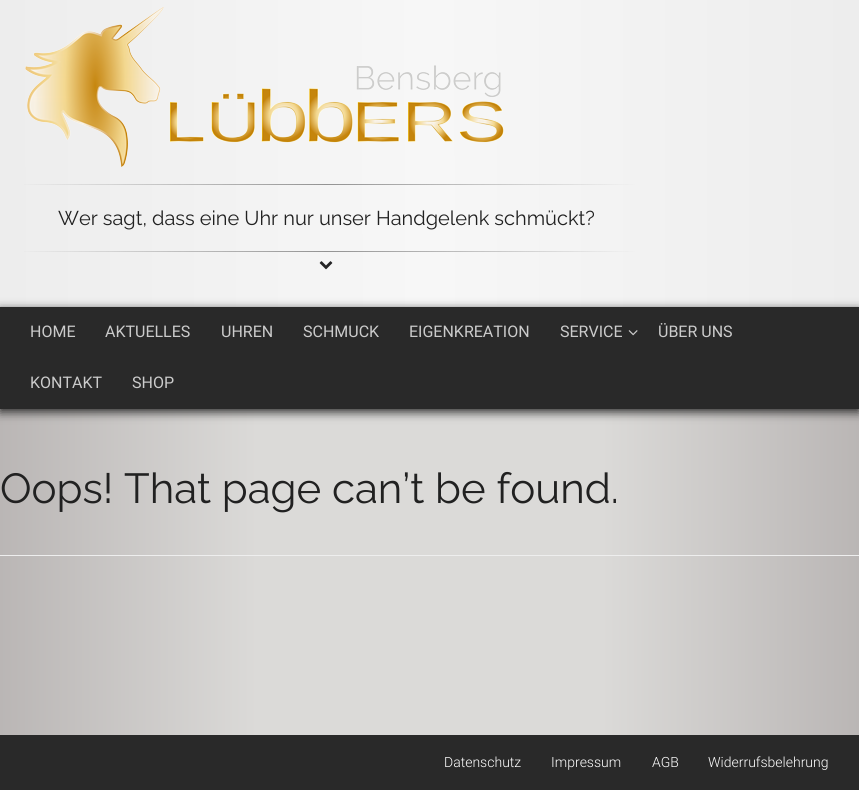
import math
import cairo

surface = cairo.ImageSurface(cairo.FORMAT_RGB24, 859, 790)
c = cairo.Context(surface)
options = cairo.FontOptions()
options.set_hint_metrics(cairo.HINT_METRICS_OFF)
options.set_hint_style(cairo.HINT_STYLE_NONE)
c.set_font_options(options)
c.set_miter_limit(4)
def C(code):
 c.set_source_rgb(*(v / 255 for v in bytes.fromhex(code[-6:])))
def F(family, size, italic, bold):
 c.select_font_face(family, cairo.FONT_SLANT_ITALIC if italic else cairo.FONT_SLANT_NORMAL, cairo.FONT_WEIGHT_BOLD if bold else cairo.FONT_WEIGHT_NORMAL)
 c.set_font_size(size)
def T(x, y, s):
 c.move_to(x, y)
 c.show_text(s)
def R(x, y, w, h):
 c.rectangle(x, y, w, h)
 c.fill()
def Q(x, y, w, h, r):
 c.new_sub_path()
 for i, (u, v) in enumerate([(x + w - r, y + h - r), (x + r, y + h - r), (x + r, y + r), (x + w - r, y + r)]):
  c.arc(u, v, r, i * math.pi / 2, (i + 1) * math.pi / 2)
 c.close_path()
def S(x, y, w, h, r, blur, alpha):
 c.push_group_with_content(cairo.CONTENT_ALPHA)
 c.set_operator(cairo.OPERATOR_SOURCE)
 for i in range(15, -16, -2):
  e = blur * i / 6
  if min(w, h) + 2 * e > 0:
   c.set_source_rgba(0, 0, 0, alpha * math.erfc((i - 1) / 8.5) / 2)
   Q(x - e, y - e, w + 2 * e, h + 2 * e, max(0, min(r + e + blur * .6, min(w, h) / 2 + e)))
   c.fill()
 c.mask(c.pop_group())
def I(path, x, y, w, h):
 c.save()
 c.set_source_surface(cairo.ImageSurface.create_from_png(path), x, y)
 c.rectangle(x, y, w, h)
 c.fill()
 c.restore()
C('ffffff')
c.paint()
gradient = cairo.LinearGradient(0,395,859,395)
gradient.add_color_stop_rgba(0,0.729,0.714,0.71,1)
gradient.add_color_stop_rgba(.3,0.859,0.855,0.847,1)
gradient.add_color_stop_rgba(.7,0.859,0.855,0.847,1)
gradient.add_color_stop_rgba(1,0.729,0.714,0.71,1)
c.set_source(gradient)
R(0,409,859,326)
gradient = cairo.LinearGradient(0,154,859,153)
gradient.add_color_stop_rgba(0,0.929,0.929,0.929,1)
gradient.add_color_stop_rgba(.5,0.969,0.969,0.969,1)
gradient.add_color_stop_rgba(1,0.929,0.929,0.929,1)
c.set_source(gradient)
R(0,0,859,307)
I('1.png',25,7,479,160)
gradient = cairo.LinearGradient(15,185,637,184)
gradient.add_color_stop_rgba(0,0.576,0.576,0.576,0)
gradient.add_color_stop_rgba(.5,0.576,0.576,0.576,1)
gradient.add_color_stop_rgba(1,0.576,0.576,0.576,0)
c.set_source(gradient)
R(24,184,613,1)
F('Raleway Thin',20,0,0)
C('212121')
T(58,225,'Wer sagt, dass eine Uhr nur unser Handgelenk schmückt?')
gradient = cairo.LinearGradient(15,252,637,251)
gradient.add_color_stop_rgba(0,0.576,0.576,0.576,0)
gradient.add_color_stop_rgba(.5,0.576,0.576,0.576,1)
gradient.add_color_stop_rgba(1,0.576,0.576,0.576,0)
c.set_source(gradient)
R(24,251,613,1)
I('2.png',319,261,14,9)
C('292929')
S(0,310,859,102,0,5,1)
C('292929')
R(0,307,859,102)
F('Roboto',16,0,0)
C('cbcbcb')
T(30,337,'HOME')
T(105,337,'AKTUELLES')
T(221,337,'UHREN')
T(303,337,'SCHMUCK')
T(409,337,'EIGENKREATION')
T(560,337,'SERVICE')
I('3.png',628,330,10,6)
T(658,337,'ÜBER UNS')
T(30,388,'KONTAKT')
T(132,388,'SHOP')
C('eeeeee')
R(0,555,859,1)
F('Raleway Thin',42,0,0)
C('212121')
T(0,503,'Oops! That page can’t be found.')
C('292929')
R(0,735,859,55)
F('Roboto Light',14,0,0)
C('ffffff')
T(444,767,'Datenschutz')
T(551,767,'Impressum')
T(652,767,'AGB')
T(708,767,'Widerrufsbelehrung')
surface.write_to_png('o.png')
